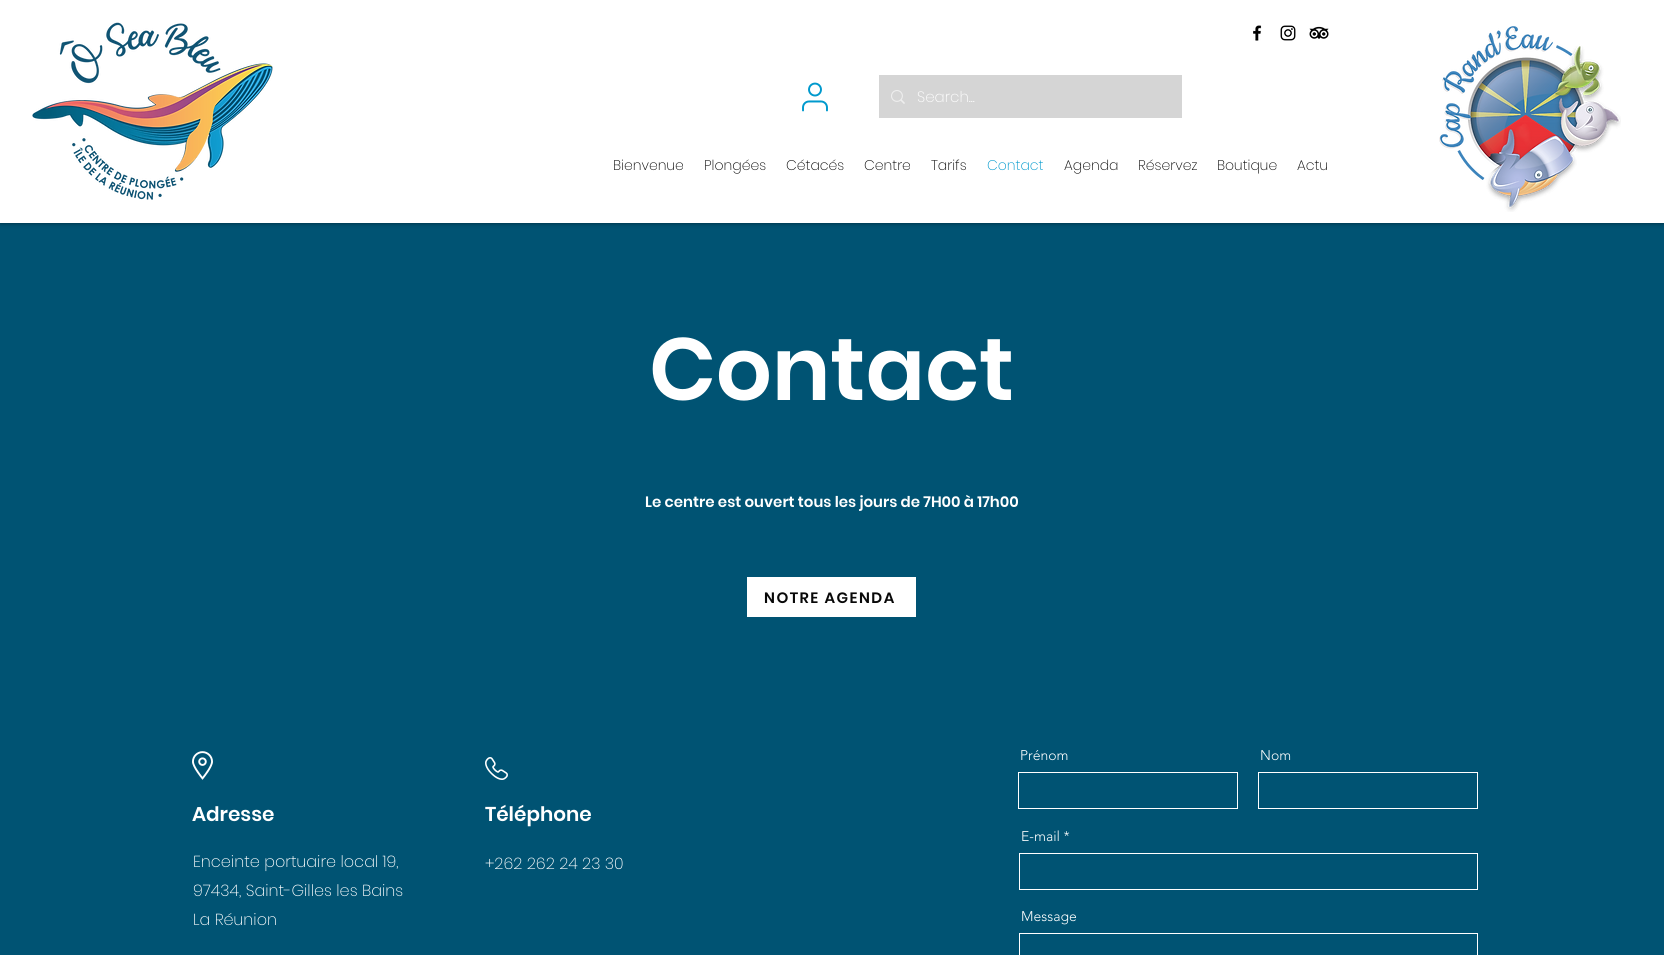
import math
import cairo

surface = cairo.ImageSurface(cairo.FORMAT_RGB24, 1664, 955)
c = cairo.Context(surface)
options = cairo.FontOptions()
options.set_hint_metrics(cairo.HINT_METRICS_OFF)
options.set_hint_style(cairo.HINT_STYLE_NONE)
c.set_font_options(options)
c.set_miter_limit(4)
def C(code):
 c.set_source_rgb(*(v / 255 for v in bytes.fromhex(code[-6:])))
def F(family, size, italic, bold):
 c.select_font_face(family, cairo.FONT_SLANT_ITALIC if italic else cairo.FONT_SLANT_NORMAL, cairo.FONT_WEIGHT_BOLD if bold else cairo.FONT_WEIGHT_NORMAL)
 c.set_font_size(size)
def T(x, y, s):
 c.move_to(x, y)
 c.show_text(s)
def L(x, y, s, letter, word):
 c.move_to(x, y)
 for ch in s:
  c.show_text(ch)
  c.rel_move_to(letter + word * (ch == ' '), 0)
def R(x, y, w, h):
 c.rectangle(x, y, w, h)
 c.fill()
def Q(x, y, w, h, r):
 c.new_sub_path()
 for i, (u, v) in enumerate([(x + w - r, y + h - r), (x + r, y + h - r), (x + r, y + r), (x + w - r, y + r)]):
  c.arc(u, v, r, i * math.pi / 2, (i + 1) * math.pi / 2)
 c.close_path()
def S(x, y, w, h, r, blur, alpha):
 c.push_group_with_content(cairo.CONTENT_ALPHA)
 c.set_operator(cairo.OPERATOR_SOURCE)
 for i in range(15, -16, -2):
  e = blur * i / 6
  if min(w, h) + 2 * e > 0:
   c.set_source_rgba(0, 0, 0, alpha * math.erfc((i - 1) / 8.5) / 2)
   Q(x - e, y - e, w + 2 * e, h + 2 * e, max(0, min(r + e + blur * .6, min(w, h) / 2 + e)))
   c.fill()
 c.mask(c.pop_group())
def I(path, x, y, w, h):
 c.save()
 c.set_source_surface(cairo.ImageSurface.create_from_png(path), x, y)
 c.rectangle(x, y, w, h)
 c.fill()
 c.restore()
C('005373')
c.paint()
C('000000')
S(0,0,1664,223,0,2.5,.5)
C('ffffff')
R(0,0,1664,223)
I('1.png',32,22,241,178)
I('2.png',802,82,26,30)
C('d5d5d5')
R(879,75,303,43)
I('3.png',891,90,14,14)
F('Poppins ExtraLight',15,0,0)
C('ffffff')
T(917,102,'Search...')
I('4.png',1253,25,9,16)
I('5.png',1280,25,16,16)
I('6.png',1309,26,20,13)
I('7.png',1439,26,182,186)
F('Poppins ExtraLight',14,0,0)
C('080808')
T(613,170,'Bienvenue')
T(704,170,'Plongées')
T(786,170,'Cétacés')
T(864,170,'Centre')
T(931,170,'Tarifs')
C('0099cd')
T(987,170,'Contact')
C('080808')
T(1064,170,'Agenda')
T(1138,170,'Réservez')
T(1217,170,'Boutique')
T(1297,170,'Actu')
F('Poppins SemiBold',88,0,0)
C('ffffff')
T(649,400,'Contact')
F('Poppins SemiBold',15,0,0)
T(645,507,'Le centre est ouvert tous les jours de 7H00 à 17h00')
R(747,577,169,40)
C('080808')
L(764,603,'NOTRE AGENDA',1.5,0)
I('8.png',192,751,21,29)
I('9.png',485,757,23,23)
F('Poppins SemiBold',20,0,0)
C('ffffff')
T(192,821,'Adresse')
T(485,821,'Téléphone')
F('Poppins ExtraLight',16,0,0)
T(193,867,'Enceinte portuaire local 19,')
T(193,896,'97434, Saint-Gilles les Bains')
T(193,925,'La Réunion')
T(485,869,'+262 262 24 23 30')
F('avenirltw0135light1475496 Light',14,0,0)
T(1020,760,'Prénom')
c.rectangle(1018.5,772.5,219,36)
c.set_line_width(1)
c.stroke()
T(1260,760,'Nom')
c.rectangle(1258.5,772.5,219,36)
c.stroke()
T(1021,841,'E-mail *')
c.rectangle(1019.5,853.5,458,36)
c.stroke()
T(1021,921,'Message')
c.rectangle(1019.5,933.5,458,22)
c.stroke()
surface.write_to_png('o.png')
